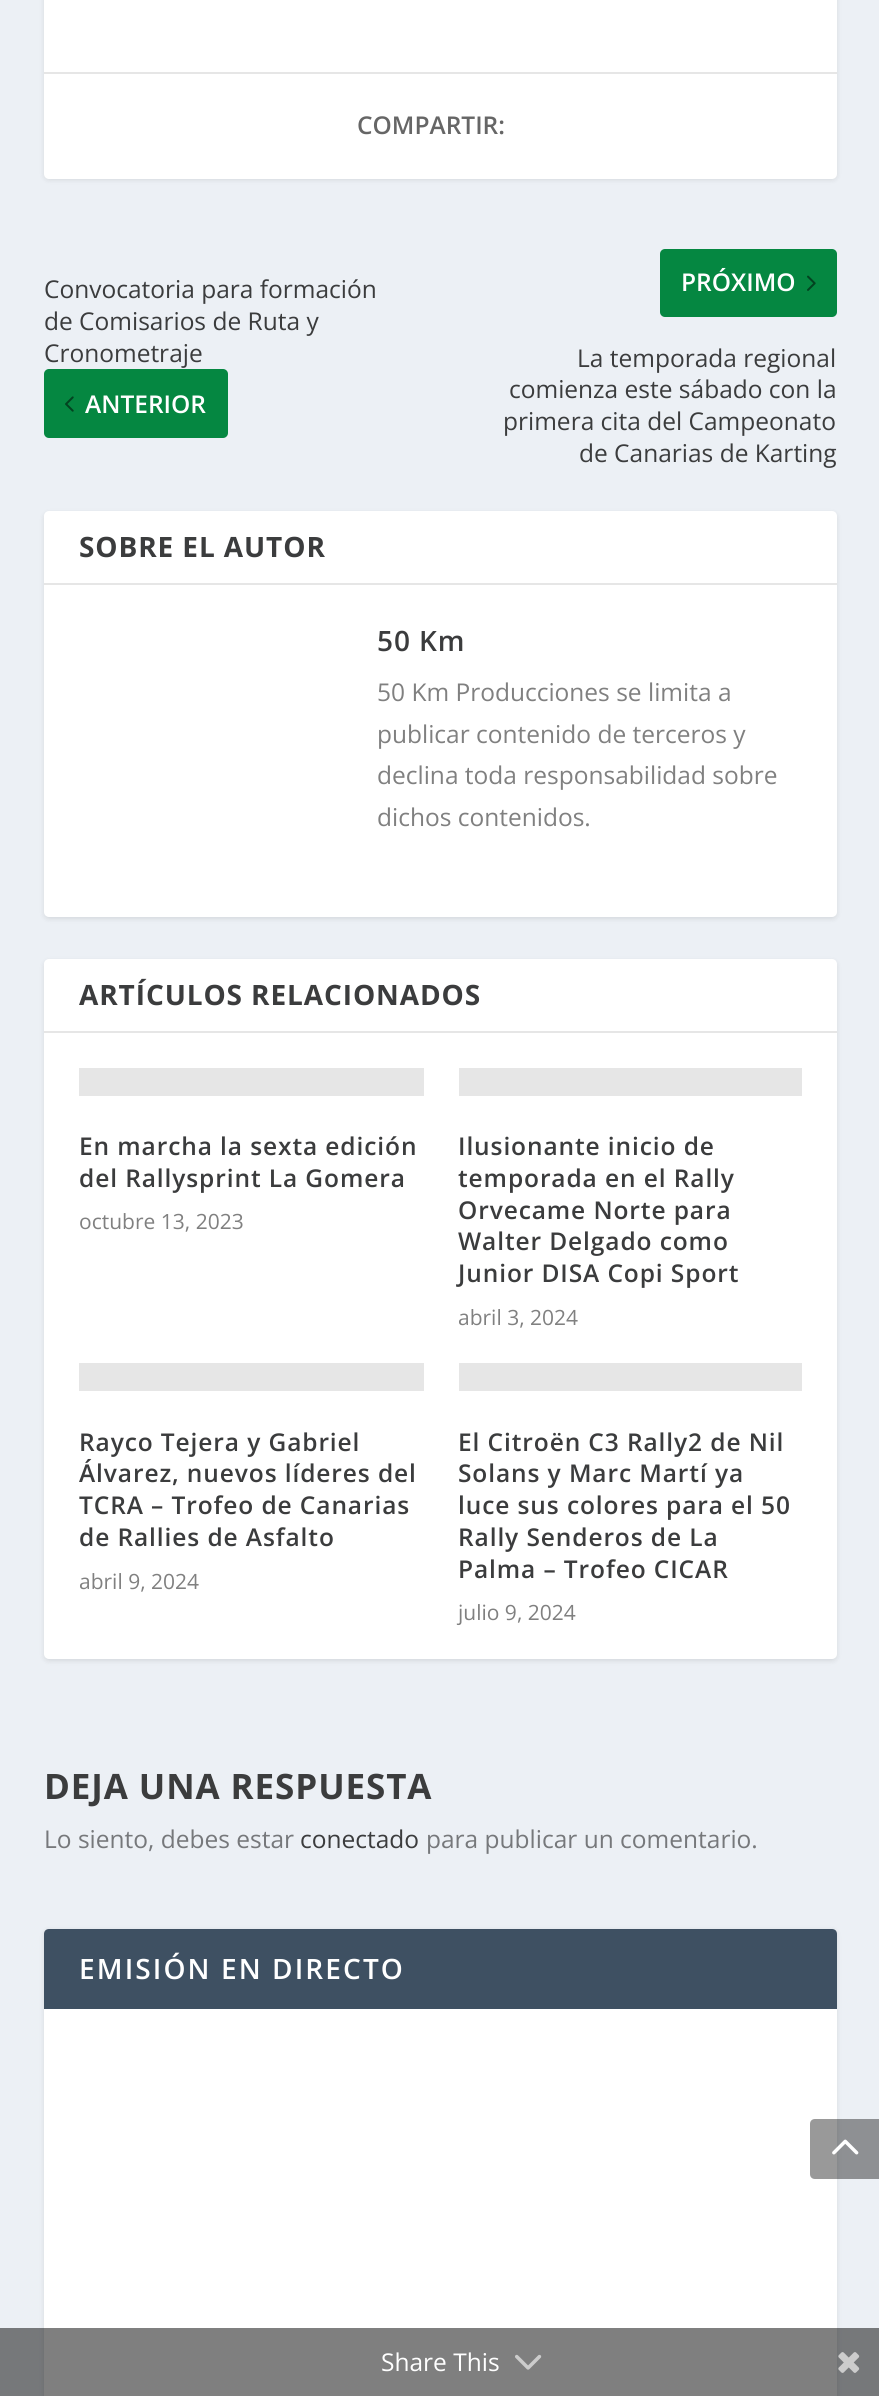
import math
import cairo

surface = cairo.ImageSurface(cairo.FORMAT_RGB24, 879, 2396)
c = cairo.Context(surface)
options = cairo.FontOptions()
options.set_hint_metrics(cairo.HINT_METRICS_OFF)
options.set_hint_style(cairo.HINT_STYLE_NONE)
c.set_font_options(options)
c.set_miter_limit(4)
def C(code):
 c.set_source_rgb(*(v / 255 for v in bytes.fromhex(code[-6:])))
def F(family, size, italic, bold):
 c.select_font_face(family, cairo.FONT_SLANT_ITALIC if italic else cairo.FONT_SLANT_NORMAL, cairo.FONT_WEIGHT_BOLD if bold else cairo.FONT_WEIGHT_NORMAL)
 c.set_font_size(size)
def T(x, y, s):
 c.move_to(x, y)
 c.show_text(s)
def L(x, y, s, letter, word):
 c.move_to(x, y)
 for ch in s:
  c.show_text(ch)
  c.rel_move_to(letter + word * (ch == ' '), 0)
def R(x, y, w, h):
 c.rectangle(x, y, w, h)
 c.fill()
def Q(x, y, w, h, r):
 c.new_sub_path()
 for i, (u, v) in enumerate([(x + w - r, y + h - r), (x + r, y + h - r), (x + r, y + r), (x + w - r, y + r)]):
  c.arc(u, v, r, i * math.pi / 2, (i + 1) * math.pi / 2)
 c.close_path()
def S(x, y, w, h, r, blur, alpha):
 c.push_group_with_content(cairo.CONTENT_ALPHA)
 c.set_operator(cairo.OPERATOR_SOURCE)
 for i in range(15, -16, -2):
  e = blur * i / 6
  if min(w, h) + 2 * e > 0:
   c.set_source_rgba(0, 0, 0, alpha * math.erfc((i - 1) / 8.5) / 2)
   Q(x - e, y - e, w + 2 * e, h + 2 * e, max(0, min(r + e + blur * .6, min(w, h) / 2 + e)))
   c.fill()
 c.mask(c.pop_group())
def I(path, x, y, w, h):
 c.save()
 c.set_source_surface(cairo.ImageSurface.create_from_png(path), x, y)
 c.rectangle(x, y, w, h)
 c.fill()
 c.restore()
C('ecf0f5')
c.paint()
C('000000')
S(44,-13,793,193,5,2.5,.1)
C('ffffff')
Q(44,-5,793,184,5)
c.fill()
C('e6e6e6')
R(44,72,793,2)
F('Open Sans SemiBold',24.5,0,0)
C('666666')
T(357,134,'COMPARTIR:')
F('Open Sans',24.5,0,0)
C('3b3c3d')
T(44,298,'Convocatoria para formación')
T(44,330,'de Comisarios de Ruta y')
T(44,362,'Cronometraje')
C('058741')
Q(44,369,184,69,5)
c.fill()
I('1.png',65,396,9,16)
F('Open Sans SemiBold',24.5,0,0)
C('ffffff')
T(85,413,'ANTERIOR')
C('058741')
Q(660,249,177,68,5)
c.fill()
C('ffffff')
T(681,291,'PRÓXIMO')
I('2.png',807,275,9,16)
F('Open Sans',24.5,0,0)
C('3b3c3d')
T(577,367,'La temporada regional')
T(509,398,'comienza este sábado con la')
T(503,430,'primera cita del Campeonato')
T(579,462,'de Canarias de Karting')
C('000000')
S(44,513,793,406,5,2.5,.1)
C('ffffff')
Q(44,511,793,406,5)
c.fill()
C('e6e6e6')
R(44,583,793,2)
F('Open Sans',28,0,1)
C('3b3c3d')
L(79,557,'SOBRE EL AUTOR',.9,0)
F('Open Sans SemiBold',28,0,0)
L(377,651,'50 Km',.9,0)
F('Open Sans',24.5,0,0)
C('808080')
T(377,701,'50 Km Producciones se limita a')
T(377,743,'publicar contenido de terceros y')
T(377,784,'declina toda responsabilidad sobre')
T(377,826,'dichos contenidos.')
C('000000')
S(44,961,793,700,5,2.5,.1)
C('ffffff')
Q(44,959,793,700,5)
c.fill()
C('e6e6e6')
R(44,1031,793,2)
F('Open Sans',28,0,1)
C('3b3c3d')
L(79,1005,'ARTÍCULOS RELACIONADOS',.9,0)
C('e6e6e6')
R(79,1068,345,28)
F('Open Sans SemiBold',24.5,0,0)
C('3b3c3d')
L(79,1155,'En marcha la sexta edición',.9,0)
L(79,1187,'del Rallysprint La Gomera',.9,0)
F('Open Sans',21,0,0)
C('808080')
T(79,1229,'octubre 13, 2023')
C('e6e6e6')
R(459,1068,343,28)
F('Open Sans SemiBold',24.5,0,0)
C('3b3c3d')
L(458,1155,'Ilusionante inicio de',.9,0)
L(458,1187,'temporada en el Rally',.9,0)
L(458,1219,'Orvecame Norte para',.9,0)
L(458,1250,'Walter Delgado como',.9,0)
L(458,1282,'Junior DISA Copi Sport',.9,0)
F('Open Sans',21,0,0)
C('808080')
T(458,1325,'abril 3, 2024')
C('e6e6e6')
R(79,1363,345,28)
F('Open Sans SemiBold',24.5,0,0)
C('3b3c3d')
L(79,1451,'Rayco Tejera y Gabriel',.9,0)
L(79,1482,'Álvarez, nuevos líderes del',.9,0)
L(79,1514,'TCRA – Trofeo de Canarias',.9,0)
L(79,1546,'de Rallies de Asfalto',.9,0)
F('Open Sans',21,0,0)
C('808080')
T(79,1589,'abril 9, 2024')
C('e6e6e6')
R(459,1363,343,28)
F('Open Sans SemiBold',24.5,0,0)
C('3b3c3d')
L(458,1451,'El Citroën C3 Rally2 de Nil',.9,0)
L(458,1482,'Solans y Marc Martí ya',.9,0)
L(458,1514,'luce sus colores para el 50',.9,0)
L(458,1546,'Rally Senderos de La',.9,0)
L(458,1578,'Palma – Trofeo CICAR',.9,0)
F('Open Sans',21,0,0)
C('808080')
T(458,1620,'julio 9, 2024')
F('Open Sans',35,0,1)
C('3b3c3d')
L(44,1799,'DEJA UNA RESPUESTA',.9,0)
F('Open Sans',24.5,0,0)
C('76787b')
T(44,1848,'Lo siento, debes estar')
C('3b3c3d')
T(300,1848,'conectado')
C('76787b')
T(426,1848,'para publicar un comentario.')
C('000000')
S(44,1930,793,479,5,2.5,.1)
C('ffffff')
Q(44,1929,793,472,5)
c.fill()
C('3e5062')
c.new_path()
c.move_to(49,1929)
c.line_to(832,1929)
c.curve_to(835,1929,837,1931,837,1934)
c.line_to(837,2009)
c.line_to(44,2009)
c.line_to(44,1934)
c.curve_to(44,1931,46,1929,49,1929)
c.close_path()
c.fill()
F('Open Sans SemiBold',28,0,0)
C('ffffff')
L(79,1979,'EMISIÓN EN DIRECTO',2.1,0)
c.set_source_rgba(0,0,0,0.4)
c.new_path()
c.move_to(815,2119)
c.line_to(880,2119)
c.line_to(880,2179)
c.line_to(815,2179)
c.curve_to(812,2179,810,2177,810,2174)
c.line_to(810,2124)
c.curve_to(810,2121,812,2119,815,2119)
c.close_path()
c.fill()
I('3.png',832,2139,27,16)
c.set_source_rgba(0,0,0,0.5)
R(0,2328,879,68)
F('Open Sans',24.5,0,0)
C('ffffff')
T(381,2371,'Share This')
I('4.png',515,2354,27,16)
I('5.png',838,2352,22,21)
surface.write_to_png('o.png')
